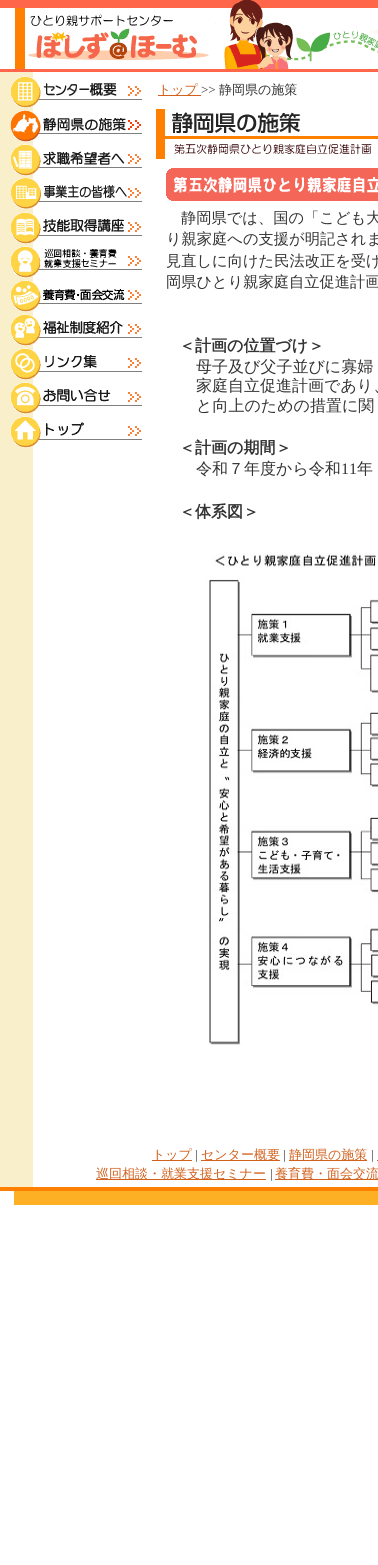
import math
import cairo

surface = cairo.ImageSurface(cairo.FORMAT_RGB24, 378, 1565)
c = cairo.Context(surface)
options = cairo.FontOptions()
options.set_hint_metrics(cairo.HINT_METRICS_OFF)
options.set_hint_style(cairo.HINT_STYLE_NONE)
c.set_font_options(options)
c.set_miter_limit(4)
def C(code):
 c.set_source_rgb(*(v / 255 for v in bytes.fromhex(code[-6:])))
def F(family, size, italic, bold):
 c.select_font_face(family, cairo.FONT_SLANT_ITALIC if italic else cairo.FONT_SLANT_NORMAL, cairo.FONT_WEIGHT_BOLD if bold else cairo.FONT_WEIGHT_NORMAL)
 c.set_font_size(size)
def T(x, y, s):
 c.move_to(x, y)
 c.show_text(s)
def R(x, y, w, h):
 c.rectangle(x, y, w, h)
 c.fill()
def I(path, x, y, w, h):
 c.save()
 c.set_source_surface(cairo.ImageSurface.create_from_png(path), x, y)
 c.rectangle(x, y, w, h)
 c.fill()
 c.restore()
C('ffffff')
c.paint()
I('1.png',0,0,378,8)
I('2.png',15,8,175,61)
I('3.png',190,8,168,61)
I('4.png',358,29,20,24)
C('ff664a')
R(0,69,378,3)
C('f9f0cb')
R(0,72,33,1115)
I('5.png',10,76,132,32)
I('6.png',10,110,132,32)
I('7.png',10,144,132,32)
I('8.png',10,178,132,31)
I('9.png',10,212,132,32)
I('10.png',10,246,132,32)
I('11.png',10,280,132,32)
I('12.png',10,314,132,32)
I('13.png',10,348,132,32)
I('14.png',10,382,132,32)
I('15.png',10,416,132,32)
C('d2611e')
R(158,95,43,1)
F('WenQuanYi Zen Hei Medium',13,0,0)
T(158,94,'トップ')
F('Liberation Serif',13,0,0)
C('333333')
T(201,94,'>>')
F('WenQuanYi Zen Hei Medium',13,0,0)
T(219,94,'静岡県の施策')
I('16.png',156,109,222,50)
I('17.png',166,168,212,33)
F('WenQuanYi Zen Hei Medium',15.25,0,0)
T(181,223,'静岡県では、国の「こども大')
T(166,244,'り親家庭への支援が明記されま')
T(166,266,'見直しに向けた民法改正を受け')
T(166,287,'岡県ひとり親家庭自立促進計画')
F('WenQuanYi Zen Hei',16,0,1)
T(179,351,'＜計画の位置づけ＞')
F('WenQuanYi Zen Hei Medium',16,0,0)
T(196,372,'母子及び父子並びに寡婦')
T(196,391,'家庭自立促進計画であり、')
T(196,411,'と向上のための措置に関')
F('WenQuanYi Zen Hei',16,0,1)
T(179,453,'＜計画の期間＞')
F('WenQuanYi Zen Hei Medium',16,0,0)
T(196,474,'令和７年度から令和')
F('Liberation Serif',16,0,0)
T(341,474,'11')
F('WenQuanYi Zen Hei Medium',16,0,0)
T(357,474,'年')
F('WenQuanYi Zen Hei',16,0,1)
T(179,517,'＜体系図＞')
I('18.png',205,553,173,492)
C('d2611e')
R(152,1160,40,1)
F('WenQuanYi Zen Hei Medium',13,0,0)
T(152,1159,'トップ')
F('Liberation Serif',13,0,0)
C('333333')
T(195,1159,'|')
C('d2611e')
R(201,1160,79,1)
F('WenQuanYi Zen Hei Medium',13,0,0)
T(201,1159,'センター概要')
F('Liberation Serif',13,0,0)
C('333333')
T(283,1159,'|')
C('d2611e')
R(289,1160,78,1)
F('WenQuanYi Zen Hei Medium',13,0,0)
T(289,1159,'静岡県の施策')
F('Liberation Serif',13,0,0)
C('333333')
T(371,1159,'|')
C('d2611e')
R(377,1160,1,1)
R(96,1179,170,1)
F('WenQuanYi Zen Hei Medium',13,0,0)
T(96,1178,'巡回相談・就業支援セミナー')
F('Liberation Serif',13,0,0)
C('333333')
T(270,1178,'|')
C('d2611e')
R(275,1179,103,1)
F('WenQuanYi Zen Hei Medium',13,0,0)
T(275,1178,'養育費・面会交流')
C('ff7f00')
R(0,1187,378,4)
C('feb025')
R(14,1191,364,14)
surface.write_to_png('o.png')
